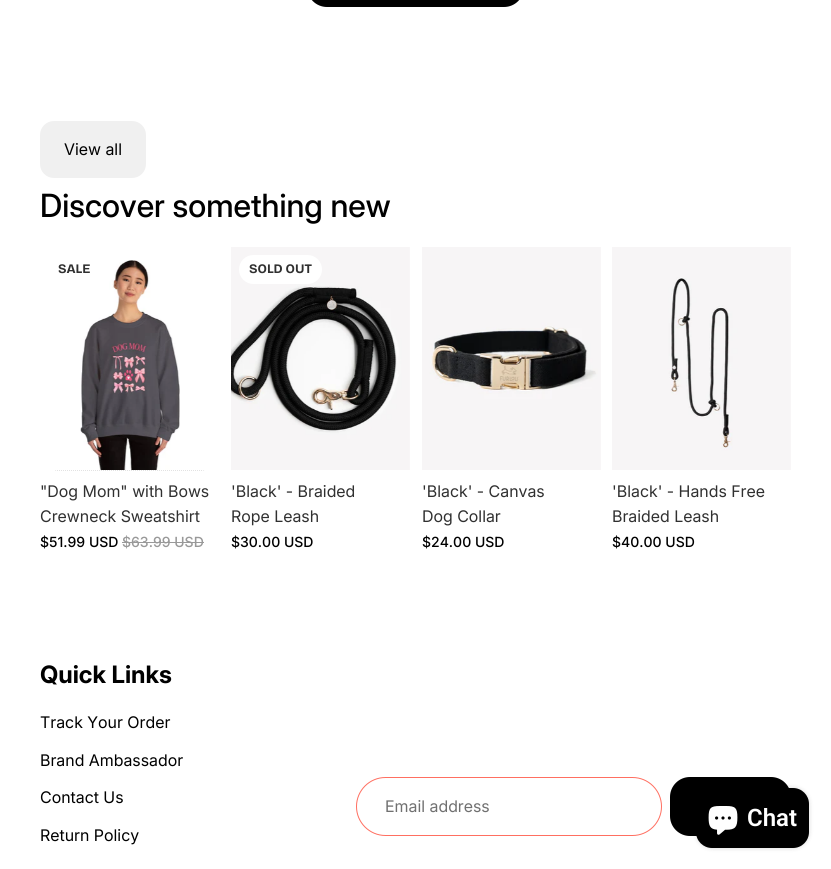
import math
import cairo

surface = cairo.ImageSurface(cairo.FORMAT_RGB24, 831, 869)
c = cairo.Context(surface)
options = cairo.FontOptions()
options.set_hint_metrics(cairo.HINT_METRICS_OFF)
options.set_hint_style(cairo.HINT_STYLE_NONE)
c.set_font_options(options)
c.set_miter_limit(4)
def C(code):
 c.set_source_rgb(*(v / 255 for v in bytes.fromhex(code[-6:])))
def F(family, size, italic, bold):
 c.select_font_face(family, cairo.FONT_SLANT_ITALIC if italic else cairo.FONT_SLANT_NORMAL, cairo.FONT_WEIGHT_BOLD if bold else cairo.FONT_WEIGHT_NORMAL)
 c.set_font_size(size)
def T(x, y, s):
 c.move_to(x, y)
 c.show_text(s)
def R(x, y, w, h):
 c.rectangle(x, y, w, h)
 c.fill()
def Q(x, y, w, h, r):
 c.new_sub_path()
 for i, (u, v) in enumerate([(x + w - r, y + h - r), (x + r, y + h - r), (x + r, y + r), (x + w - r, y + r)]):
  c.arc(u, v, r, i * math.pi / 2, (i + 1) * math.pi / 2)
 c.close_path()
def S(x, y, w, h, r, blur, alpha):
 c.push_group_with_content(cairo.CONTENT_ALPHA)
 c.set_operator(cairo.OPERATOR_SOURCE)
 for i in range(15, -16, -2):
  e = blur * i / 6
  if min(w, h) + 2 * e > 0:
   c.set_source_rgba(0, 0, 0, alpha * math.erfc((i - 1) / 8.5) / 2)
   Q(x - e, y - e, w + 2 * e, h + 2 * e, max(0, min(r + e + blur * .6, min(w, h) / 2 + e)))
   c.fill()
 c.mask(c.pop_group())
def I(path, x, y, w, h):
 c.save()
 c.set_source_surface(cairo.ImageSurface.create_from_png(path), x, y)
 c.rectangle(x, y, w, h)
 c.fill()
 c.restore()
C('ffffff')
c.paint()
C('000000')
Q(308,-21,215,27,19)
c.fill_preserve()
c.stroke()
C('f0f0f0')
Q(40,121,106,57,14)
c.fill()
F('Inter',16,0,0)
C('000000')
T(64,155,'View all')
F('Inter Medium',32,0,0)
T(40,217,'Discover something new')
I('1.png',80,260,100,210)
F('Bricolage Grotesque',13,0,1)
C('303030')
T(58,273,'SALE')
c.save()
c.rectangle(40,247,179,224)
c.clip()
c.new_path()
c.move_to(57,470.5)
c.line_to(202,470.5)
c.curve_to(204,470.5,205.5,472,205.5,474)
c.line_to(205.5,744)
c.curve_to(205.5,746,204,747.5,202,747.5)
c.line_to(57,747.5)
c.curve_to(55,747.5,53.5,746,53.5,744)
c.line_to(53.5,474)
c.curve_to(53.5,472,55,470.5,57,470.5)
c.close_path()
C('e2e2e2')
c.set_line_width(1)
c.set_dash([1,1])
c.stroke()
c.restore()
F('Inter',16,0,0)
T(40,497,'"Dog Mom" with Bows')
T(40,522,'Crewneck Sweatshirt')
F('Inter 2 Medium',14,0,0)
C('000000')
T(40,547,'$51.99 USD')
C('999999')
T(122,547,'$63.99 USD')
R(122,542,82,1)
I('2.png',231,247,179,223)
C('ffffff')
Q(239,255,83,29,14.5)
c.fill()
F('Bricolage Grotesque',13,0,1)
C('303030')
T(249,273,'SOLD OUT')
F('Inter',16,0,0)
T(231,497,'\'Black\' - Braided')
T(231,522,'Rope Leash')
F('Inter 2 Medium',14,0,0)
C('000000')
T(231,547,'$30.00 USD')
I('3.png',422,247,179,223)
F('Inter',16,0,0)
C('303030')
T(422,497,'\'Black\' - Canvas')
T(422,522,'Dog Collar')
F('Inter 2 Medium',14,0,0)
C('000000')
T(422,547,'$24.00 USD')
I('4.png',612,247,179,223)
F('Inter',16,0,0)
C('303030')
T(612,497,'\'Black\' - Hands Free')
T(612,522,'Braided Leash')
F('Inter 2 Medium',14,0,0)
C('000000')
T(612,547,'$40.00 USD')
F('Inter',24,0,1)
T(40,683,'Quick Links')
F('Inter',16,0,0)
T(40,728,'Track Your Order')
T(40,766,'Brand Ambassador')
T(40,803,'Contact Us')
T(40,841,'Return Policy')
Q(356.5,777.5,305,58,29)
C('ff6f61')
c.set_line_width(1)
c.stroke()
C('707070')
T(385,812,'Email address')
C('000000')
Q(671,778,119,57,19)
c.fill_preserve()
c.set_line_width(2)
c.stroke()
C('000000')
S(696,788,113,60,16,2.5,.15)
C('000000')
Q(696,788,113,60,16)
c.fill()
I('5.png',708,806,30,29)
F('Roboto SemiBold',24,0,0)
C('ffffff')
T(747,826,'Chat')
surface.write_to_png('o.png')
